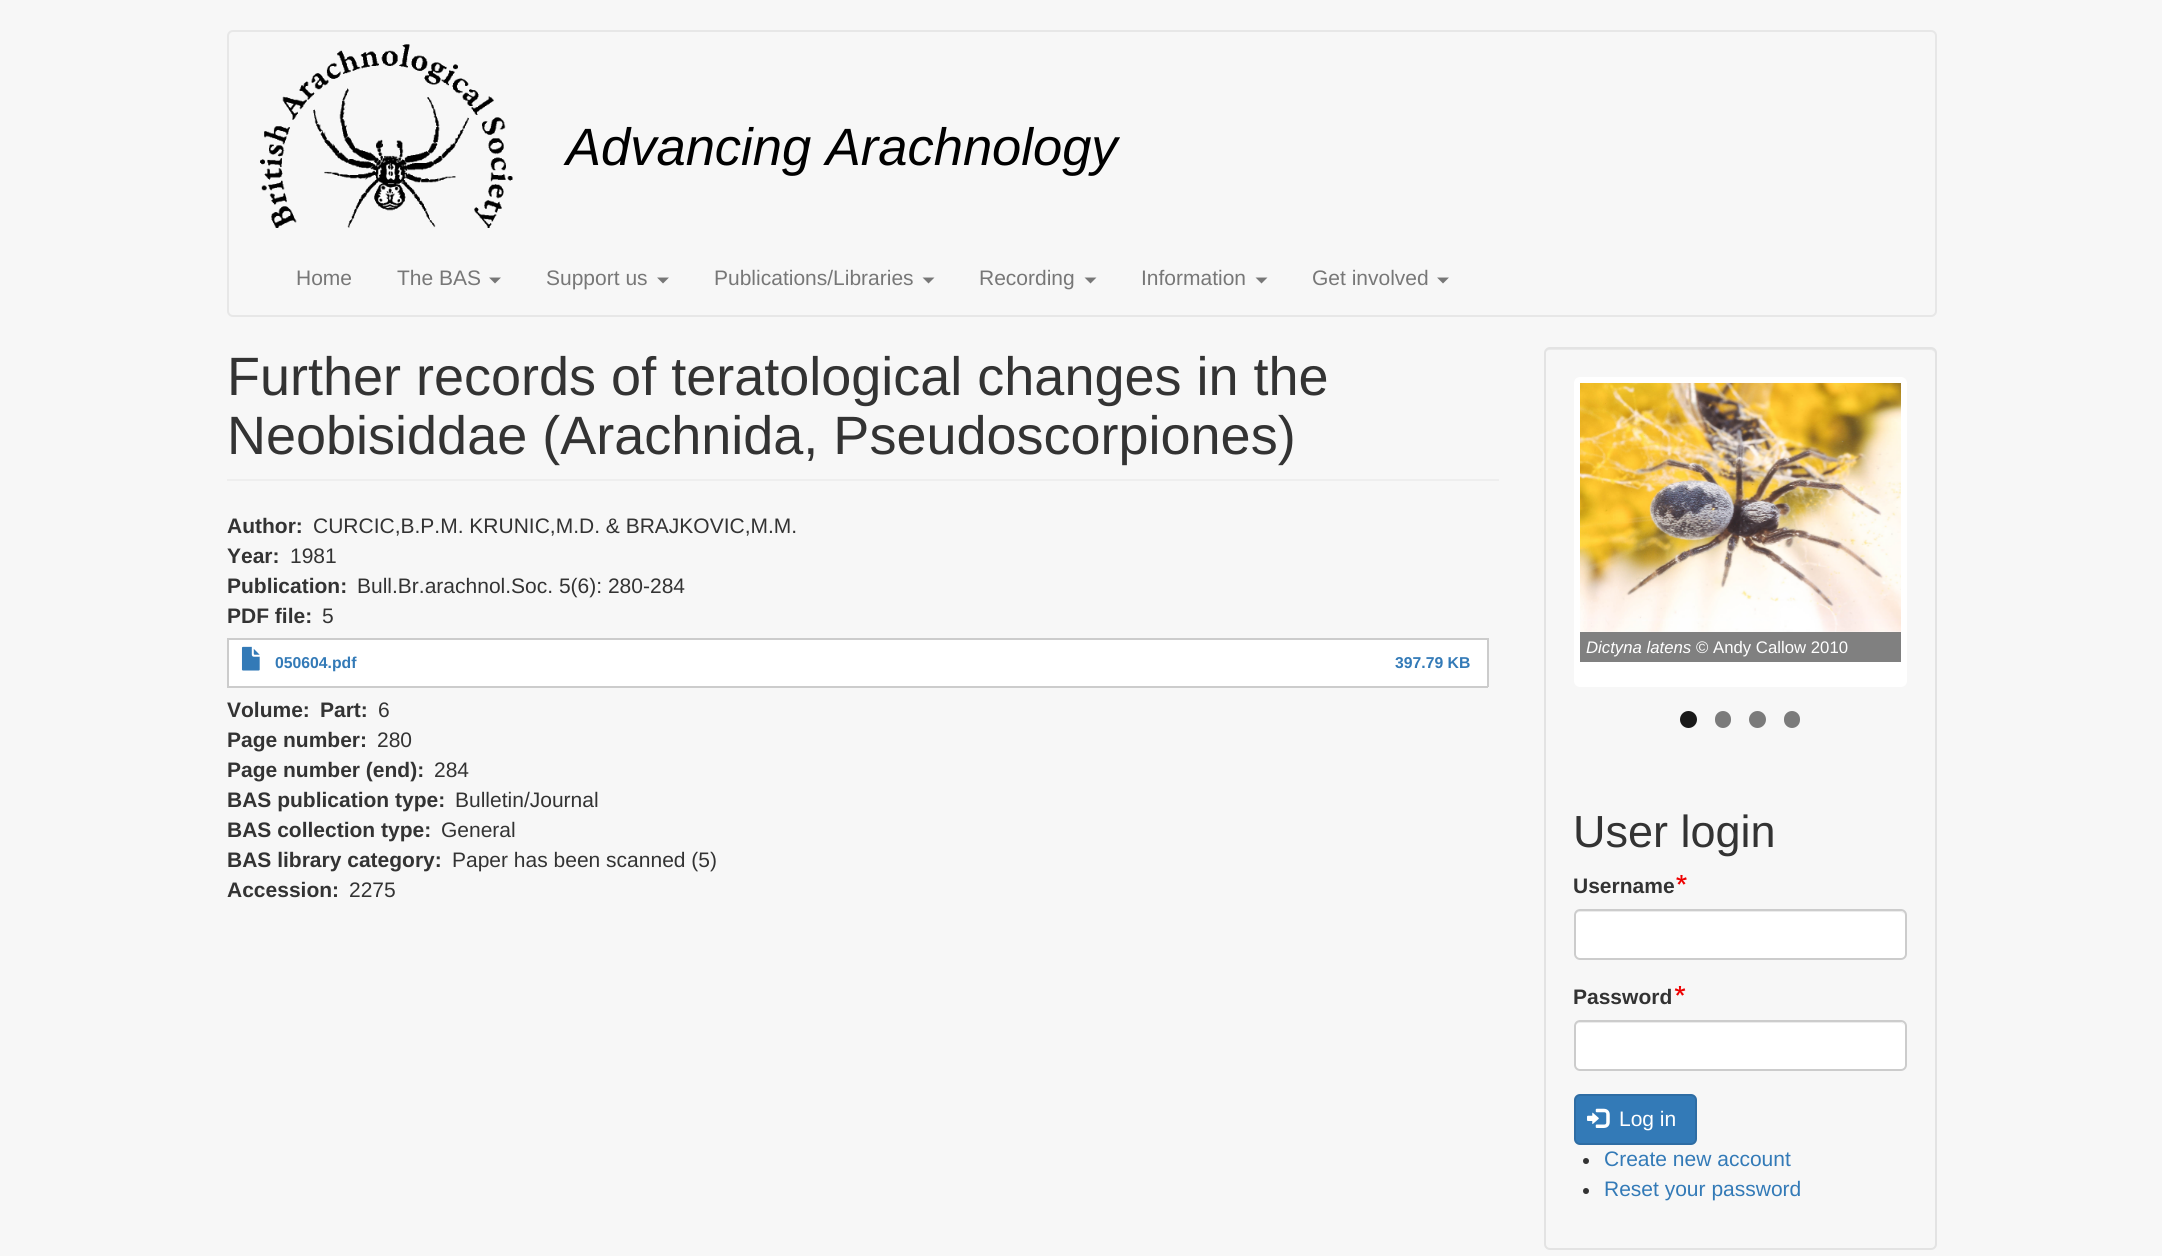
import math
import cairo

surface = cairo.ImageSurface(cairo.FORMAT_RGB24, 2162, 1256)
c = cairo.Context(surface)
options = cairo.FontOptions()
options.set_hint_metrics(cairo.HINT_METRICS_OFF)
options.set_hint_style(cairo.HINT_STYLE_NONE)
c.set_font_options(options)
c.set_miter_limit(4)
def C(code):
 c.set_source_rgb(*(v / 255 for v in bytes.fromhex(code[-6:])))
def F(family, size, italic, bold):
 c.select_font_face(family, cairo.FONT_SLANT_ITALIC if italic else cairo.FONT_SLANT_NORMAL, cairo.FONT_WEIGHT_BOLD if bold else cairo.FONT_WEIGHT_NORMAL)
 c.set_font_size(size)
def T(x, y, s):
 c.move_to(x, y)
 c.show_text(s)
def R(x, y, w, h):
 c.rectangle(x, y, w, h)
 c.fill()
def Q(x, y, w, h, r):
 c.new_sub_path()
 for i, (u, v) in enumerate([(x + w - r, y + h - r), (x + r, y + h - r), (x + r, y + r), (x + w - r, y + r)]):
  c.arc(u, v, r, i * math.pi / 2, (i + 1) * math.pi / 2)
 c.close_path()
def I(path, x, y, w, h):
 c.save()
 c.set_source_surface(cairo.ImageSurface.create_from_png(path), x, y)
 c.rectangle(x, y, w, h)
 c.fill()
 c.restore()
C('f7f7f7')
c.paint()
Q(228,31,1708,285,5)
C('e7e7e7')
c.stroke()
I('1.png',260,44,253,184)
F('Liberation Sans',52.5,1,0)
C('000000')
T(566,165,'Advancing Arachnology')
F('Liberation Sans',21,0,0)
C('777777')
T(296,285,'Home')
T(397,285,'The BAS')
c.new_path()
c.move_to(489,277.5)
c.line_to(501,277.5)
c.line_to(495,283.5)
c.close_path()
c.fill()
T(546,285,'Support us')
c.new_path()
c.move_to(657,277.5)
c.line_to(669,277.5)
c.line_to(663,283.5)
c.close_path()
c.fill()
T(714,285,'Publications/Libraries')
c.new_path()
c.move_to(922.5,277.5)
c.line_to(934.5,277.5)
c.line_to(928.5,283.5)
c.close_path()
c.fill()
T(979,285,'Recording')
c.new_path()
c.move_to(1084.5,277.5)
c.line_to(1096.5,277.5)
c.line_to(1090.5,283.5)
c.close_path()
c.fill()
T(1141,285,'Information')
c.new_path()
c.move_to(1255.5,277.5)
c.line_to(1267.5,277.5)
c.line_to(1261.5,283.5)
c.close_path()
c.fill()
T(1312,285,'Get involved')
c.new_path()
c.move_to(1437,277.5)
c.line_to(1449,277.5)
c.line_to(1443,283.5)
c.close_path()
c.fill()
C('eeeeee')
R(227,479,1272,2)
F('Liberation Sans',54,0,0)
C('333333')
T(227,395,'Further records of teratological changes in the')
T(227,454,'Neobisiddae (Arachnida, Pseudoscorpiones)')
F('Liberation Sans',21,0,1)
T(227,533,'Author:')
F('Liberation Sans',21,0,0)
T(313,533,'CURCIC,B.P.M. KRUNIC,M.D. & BRAJKOVIC,M.M.')
F('Liberation Sans',21,0,1)
T(227,563,'Year:')
F('Liberation Sans',21,0,0)
T(290,563,'1981')
F('Liberation Sans',21,0,1)
T(227,593,'Publication:')
F('Liberation Sans',21,0,0)
T(357,593,'Bull.Br.arachnol.Soc. 5(6): 280-284')
F('Liberation Sans',21,0,1)
T(227,623,'PDF file:')
C('ffffff')
R(229,640,1258,46)
C('cccccc')
R(227,638,1261,2)
R(227,686,1152,2)
R(227,638,2,49)
I('2.png',241,646,19,25)
F('Liberation Sans',15.75,0,1)
C('337ab7')
T(275,668,'050604.pdf')
C('cccccc')
R(1487,638,2,49)
R(1379,686,109,2)
C('337ab7')
T(1395,668,'397.79 KB')
F('Liberation Sans',21,0,0)
C('333333')
T(322,623,'5')
F('Liberation Sans',21,0,1)
T(227,717,'Volume:')
T(320,717,'Part:')
F('Liberation Sans',21,0,0)
T(378,717,'6')
F('Liberation Sans',21,0,1)
T(227,747,'Page number:')
F('Liberation Sans',21,0,0)
T(377,747,'280')
F('Liberation Sans',21,0,1)
T(227,777,'Page number (end):')
F('Liberation Sans',21,0,0)
T(434,777,'284')
F('Liberation Sans',21,0,1)
T(227,807,'BAS publication type:')
F('Liberation Sans',21,0,0)
T(455,807,'Bulletin/Journal')
F('Liberation Sans',21,0,1)
T(227,837,'BAS collection type:')
F('Liberation Sans',21,0,0)
T(441,837,'General')
F('Liberation Sans',21,0,1)
T(227,867,'BAS library category:')
F('Liberation Sans',21,0,0)
T(452,867,'Paper has been scanned (5)')
F('Liberation Sans',21,0,1)
T(227,897,'Accession:')
F('Liberation Sans',21,0,0)
T(349,897,'2275')
C('e9e9e9')
c.new_path()
c.move_to(1550,350)
c.line_to(1930,350)
c.curve_to(1933,350,1935,352,1935,354)
c.line_to(1935,353)
c.curve_to(1935,350,1933,348,1930,348)
c.line_to(1550,348)
c.curve_to(1547,348,1545,350,1545,353)
c.line_to(1545,354)
c.curve_to(1545,352,1547,350,1550,350)
c.close_path()
c.fill()
Q(1545,348,391,901,5)
C('e3e3e3')
c.stroke()
C('ffffff')
Q(1574,377,333,310,6)
c.fill()
I('3.png',1580,383,321,249)
C('808080')
R(1580,632,321,30)
F('Liberation Sans',16.75,1,0)
C('ffffff')
T(1586,653,'Dictyna latens')
F('Liberation Sans',16.75,0,0)
T(1696,653,'© Andy Callow 2010')
C('191919')
c.new_path()
c.arc(1688.5,719.5,8.5,0,2 * math.pi)
c.fill()
C('7b7b7b')
Q(1715,711,16,17,8)
c.fill()
c.arc(1757.5,719.5,8.5,0,2 * math.pi)
c.fill()
Q(1784,711,16,17,8)
c.fill()
F('Liberation Sans',45,0,0)
C('333333')
T(1573,847,'User login')
F('Liberation Sans',21,0,1)
T(1573,893,'Username')
I('4.png',1676,875,11,10)
C('ffffff')
Q(1574,909,333,51,6)
c.fill()
C('ececec')
c.new_path()
c.move_to(1580,912)
c.line_to(1900,912)
c.curve_to(1903,912,1905,914,1905,916)
c.curve_to(1905,913,1903,911,1900,911)
c.line_to(1580,911)
c.curve_to(1577,911,1575,913,1575,916)
c.curve_to(1575,914,1577,912,1580,912)
c.close_path()
c.fill()
Q(1575,910,331,49,5)
C('cccccc')
c.stroke()
C('333333')
T(1573,1004,'Password')
I('5.png',1674,986,12,10)
C('ffffff')
Q(1574,1020,333,51,6)
c.fill()
C('ececec')
c.new_path()
c.move_to(1580,1023)
c.line_to(1900,1023)
c.curve_to(1903,1023,1905,1025,1905,1028)
c.curve_to(1905,1025,1903,1022,1900,1022)
c.line_to(1580,1022)
c.curve_to(1577,1022,1575,1025,1575,1028)
c.curve_to(1575,1025,1577,1023,1580,1023)
c.close_path()
c.fill()
Q(1575,1021,331,49,5)
C('cccccc')
c.stroke()
C('337ab7')
Q(1575,1095,121,49,5)
c.fill_preserve()
C('2e6da4')
c.stroke()
I('6.png',1587,1108,23,20)
F('Liberation Sans',21,0,0)
C('ffffff')
T(1619,1126,'Log in')
C('333333')
c.new_path()
c.arc(1586,1161,3,0,2 * math.pi)
c.fill()
C('337ab7')
T(1604,1166,'Create new account')
C('333333')
c.new_path()
c.arc(1586,1191,3,0,2 * math.pi)
c.fill()
C('337ab7')
T(1604,1196,'Reset your password')
surface.write_to_png('o.png')
